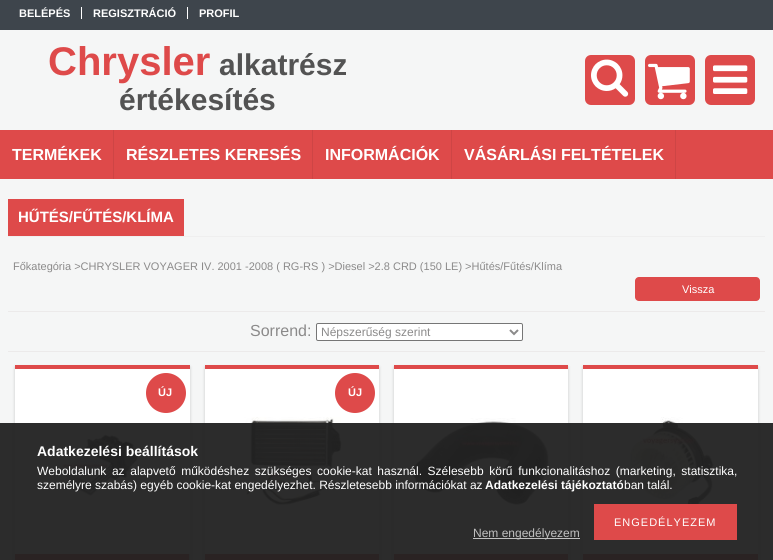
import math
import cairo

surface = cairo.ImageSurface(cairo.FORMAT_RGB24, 773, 560)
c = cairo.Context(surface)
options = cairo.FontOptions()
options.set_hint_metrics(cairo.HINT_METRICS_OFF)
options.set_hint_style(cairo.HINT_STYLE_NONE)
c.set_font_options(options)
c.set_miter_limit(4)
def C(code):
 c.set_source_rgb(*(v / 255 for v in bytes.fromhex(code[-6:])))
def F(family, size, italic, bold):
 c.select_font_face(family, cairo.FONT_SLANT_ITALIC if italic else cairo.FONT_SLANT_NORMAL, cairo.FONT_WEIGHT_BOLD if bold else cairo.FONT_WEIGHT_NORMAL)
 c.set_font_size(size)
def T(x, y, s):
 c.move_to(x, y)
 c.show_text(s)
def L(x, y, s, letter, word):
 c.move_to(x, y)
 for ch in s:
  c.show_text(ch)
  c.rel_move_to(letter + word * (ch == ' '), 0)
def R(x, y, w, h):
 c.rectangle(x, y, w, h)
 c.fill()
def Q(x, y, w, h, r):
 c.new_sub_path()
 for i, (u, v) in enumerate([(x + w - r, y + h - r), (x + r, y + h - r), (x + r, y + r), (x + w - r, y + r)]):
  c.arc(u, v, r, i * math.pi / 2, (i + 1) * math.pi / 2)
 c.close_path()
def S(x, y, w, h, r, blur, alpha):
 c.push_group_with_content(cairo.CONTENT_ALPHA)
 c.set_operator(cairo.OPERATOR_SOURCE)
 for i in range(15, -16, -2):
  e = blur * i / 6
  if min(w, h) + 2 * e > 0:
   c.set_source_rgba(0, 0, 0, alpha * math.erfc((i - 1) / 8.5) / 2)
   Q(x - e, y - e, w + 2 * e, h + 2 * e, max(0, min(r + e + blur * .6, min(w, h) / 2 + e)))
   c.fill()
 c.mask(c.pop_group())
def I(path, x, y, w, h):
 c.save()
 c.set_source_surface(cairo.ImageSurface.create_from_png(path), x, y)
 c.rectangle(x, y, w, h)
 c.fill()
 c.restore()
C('f5f6f6')
c.paint()
C('3e454c')
R(0,0,773,30)
F('Liberation Sans',11,0,1)
C('ffffff')
T(19,17,'BELÉPÉS')
R(81,7,1,12)
T(93,17,'REGISZTRÁCIÓ')
R(187,7,1,12)
T(199,17,'PROFIL')
F('Liberation Sans',40,0,1)
C('de4a4a')
T(48,75,'Chrysler')
F('Liberation Sans',30,0,1)
C('535353')
T(219,75,'alkatrész')
T(119,110,'értékesítés')
C('de4a4a')
Q(585,55,50,50,6)
c.fill()
I('1.png',591,59,38,38)
Q(645,55,50,50,6)
c.fill()
I('2.png',648,63,42,37)
Q(705,55,50,50,6)
c.fill()
I('3.png',713,65,35,29)
R(0,130,773,49)
C('ce4545')
R(113,130,1,49)
F('Liberation Sans',16,0,1)
C('ffffff')
T(12,160,'TERMÉKEK')
C('ce4545')
R(312,130,1,49)
C('ffffff')
T(126,160,'RÉSZLETES KERESÉS')
C('ce4545')
R(451,130,1,49)
C('ffffff')
T(325,160,'INFORMÁCIÓK')
C('ce4545')
R(675,130,1,49)
C('ffffff')
T(464,160,'VÁSÁRLÁSI FELTÉTELEK')
C('efefef')
R(8,236,757,1)
C('de4a4a')
R(8,199,176,37)
F('Liberation Sans',15,0,1)
C('ffffff')
T(18,222,'HŰTÉS/FŰTÉS/KLÍMA')
F('Liberation Sans',11,0,0)
C('8b8a8a')
T(13,270,'Főkategória >CHRYSLER VOYAGER IV. 2001 -2008 ( RG-RS ) >Diesel >2.8 CRD (150 LE) >Hűtés/Fűtés/Klíma')
C('de4a4a')
Q(635,277,125,24,4)
c.fill()
C('ffffff')
T(682,293,'Vissza')
C('eceaea')
R(8,311,757,1)
F('Liberation Sans',16,0,0)
C('8b8a8a')
T(250,336,'Sorrend:')
C('ffffff')
Q(316.5,323.5,206,17,1.5)
c.fill_preserve()
C('767676')
c.set_line_width(1)
c.stroke()
c.new_path()
c.move_to(510,330)
c.line_to(514,334)
c.line_to(518,330)
C('8b8a8a')
c.set_line_width(2)
c.stroke()
F('Liberation Sans',12,0,0)
T(321,336,'Népszerűség szerint')
C('eceaea')
R(8,351,757,1)
C('000000')
S(15,367,175,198,0,1.5,.2)
C('de4a4a')
R(15,365,175,4)
C('ffffff')
R(15,369,175,185)
I('4.png',62,433,77,65)
C('de4a4a')
R(15,554,174,6)
c.arc(166,393,20,0,2 * math.pi)
c.fill()
F('Liberation Sans',11,0,1)
C('ffffff')
T(158,396,'ÚJ')
C('000000')
S(205,367,174,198,0,1.5,.2)
C('de4a4a')
R(205,365,174,4)
C('ffffff')
R(205,369,174,185)
I('5.png',244,417,98,88)
C('de4a4a')
R(205,554,174,6)
c.arc(355,393,20,0,2 * math.pi)
c.fill()
C('ffffff')
T(348,396,'ÚJ')
C('000000')
S(394,367,174,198,0,1.5,.2)
C('de4a4a')
R(394,365,174,4)
C('ffffff')
R(394,369,174,185)
I('6.png',411,418,138,87)
C('de4a4a')
R(394,554,174,6)
C('000000')
S(583,367,175,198,0,1.5,.2)
C('de4a4a')
R(583,365,175,4)
C('ffffff')
R(583,369,175,185)
I('7.png',629,417,90,87)
C('de4a4a')
R(583,554,175,6)
c.set_source_rgba(0.133,0.133,0.133,0.95)
R(0,423,773,137)
F('Liberation Sans',14,0,1)
C('ffffff')
T(37,456,'Adatkezelési beállítások')
F('Liberation Sans',12,0,0)
L(37,475,'Weboldalunk az alapvető működéshez szükséges cookie-kat használ. Szélesebb körű funkcionalitáshoz (marketing, statisztika,',0,2.25)
T(37,489,'személyre szabás) egyéb cookie-kat engedélyezhet. Részletesebb információkat az')
F('Liberation Sans',12,0,1)
T(485,489,'Adatkezelési tájékoztató')
F('Liberation Sans',12,0,0)
T(624,489,'ban talál.')
C('de4a4a')
R(594,504,143,36)
F('Liberation Sans',11,0,0)
C('ffffff')
L(614,526,'ENGEDÉLYEZEM',1,0)
C('c0c0c0')
R(473,538,107,1)
F('Liberation Sans',12,0,0)
T(473,537,'Nem engedélyezem')
surface.write_to_png('o.png')
